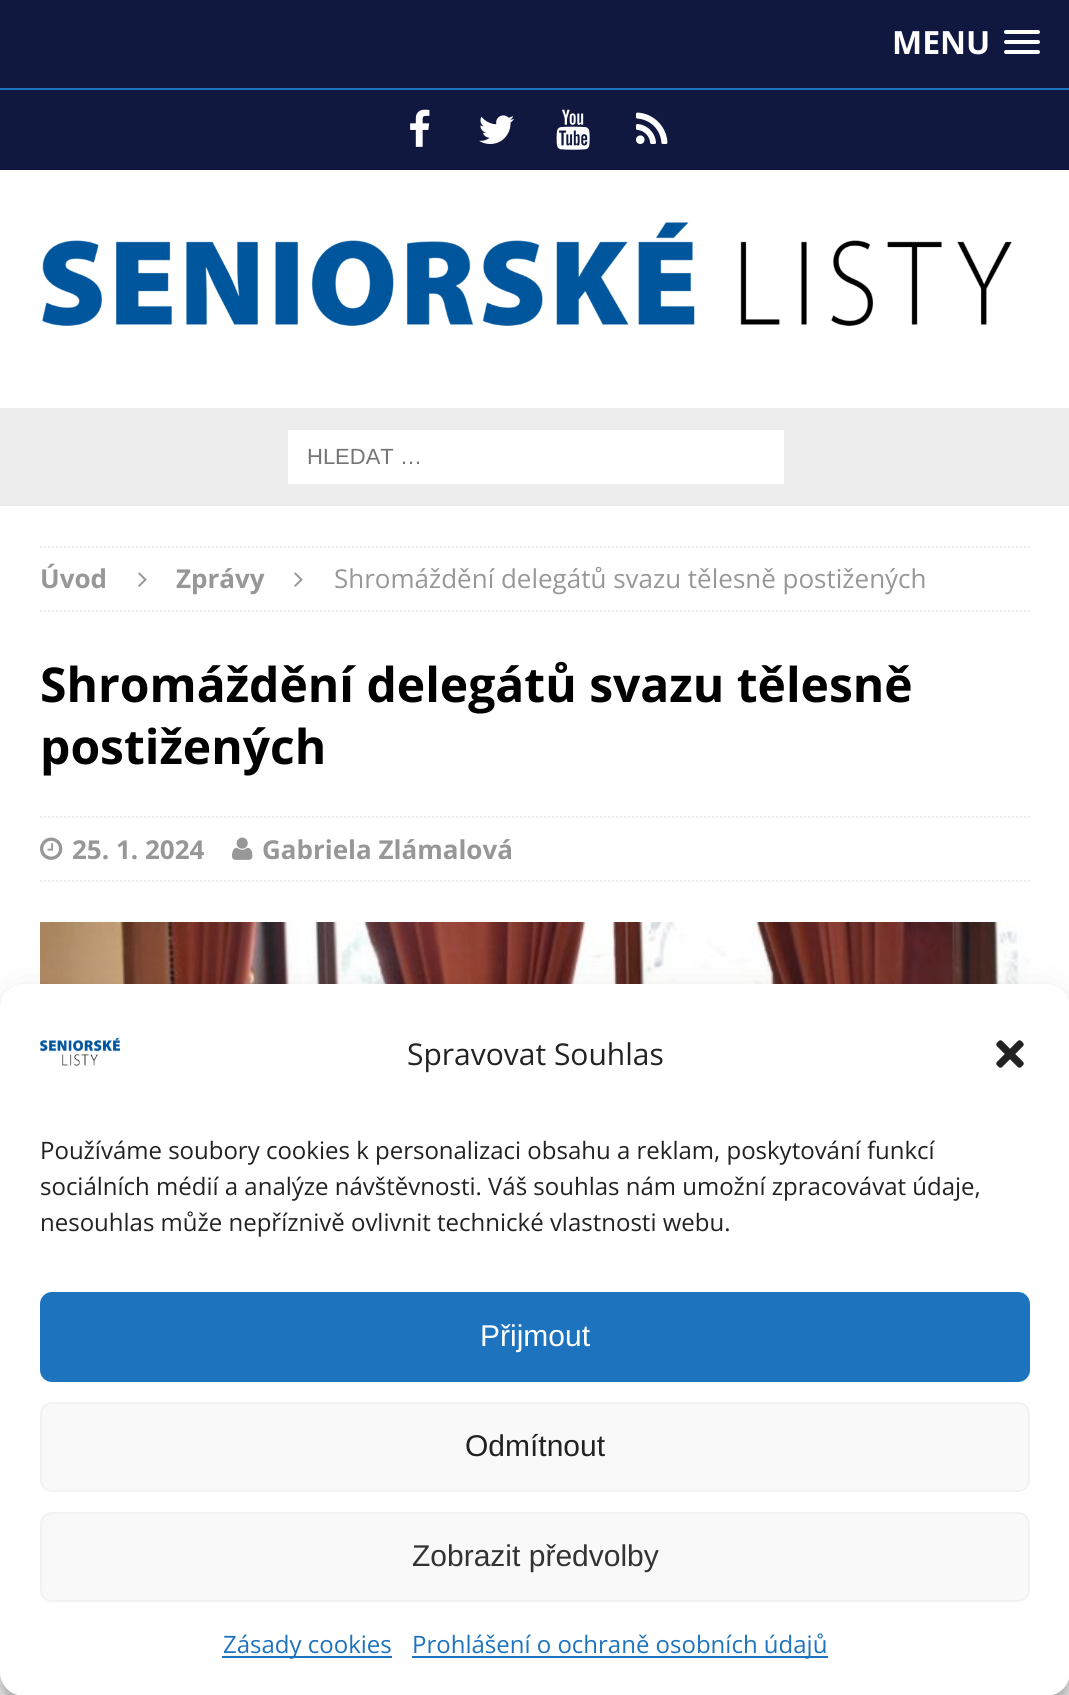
import math
import cairo

surface = cairo.ImageSurface(cairo.FORMAT_RGB24, 1069, 1695)
c = cairo.Context(surface)
options = cairo.FontOptions()
options.set_hint_metrics(cairo.HINT_METRICS_OFF)
options.set_hint_style(cairo.HINT_STYLE_NONE)
c.set_font_options(options)
c.set_miter_limit(4)
def C(code):
 c.set_source_rgb(*(v / 255 for v in bytes.fromhex(code[-6:])))
def F(family, size, italic, bold):
 c.select_font_face(family, cairo.FONT_SLANT_ITALIC if italic else cairo.FONT_SLANT_NORMAL, cairo.FONT_WEIGHT_BOLD if bold else cairo.FONT_WEIGHT_NORMAL)
 c.set_font_size(size)
def T(x, y, s):
 c.move_to(x, y)
 c.show_text(s)
def R(x, y, w, h):
 c.rectangle(x, y, w, h)
 c.fill()
def Q(x, y, w, h, r):
 c.new_sub_path()
 for i, (u, v) in enumerate([(x + w - r, y + h - r), (x + r, y + h - r), (x + r, y + r), (x + w - r, y + r)]):
  c.arc(u, v, r, i * math.pi / 2, (i + 1) * math.pi / 2)
 c.close_path()
def S(x, y, w, h, r, blur, alpha):
 c.push_group_with_content(cairo.CONTENT_ALPHA)
 c.set_operator(cairo.OPERATOR_SOURCE)
 for i in range(15, -16, -2):
  e = blur * i / 6
  if min(w, h) + 2 * e > 0:
   c.set_source_rgba(0, 0, 0, alpha * math.erfc((i - 1) / 8.5) / 2)
   Q(x - e, y - e, w + 2 * e, h + 2 * e, max(0, min(r + e + blur * .6, min(w, h) / 2 + e)))
   c.fill()
 c.mask(c.pop_group())
def I(path, x, y, w, h):
 c.save()
 c.set_source_surface(cairo.ImageSurface.create_from_png(path), x, y)
 c.rectangle(x, y, w, h)
 c.fill()
 c.restore()
C('11183f')
c.paint()
C('1e73be')
R(0,88,1069,2)
F('Open Sans',32,0,1)
C('ffffff')
T(892,54,'MENU')
Q(1004,30,36,4,2)
c.fill()
Q(1004,40,36,4,2)
c.fill()
Q(1004,50,36,4,2)
c.fill()
I('1.png',410,109,20,38)
I('2.png',479,115,35,29)
I('3.png',556,109,34,41)
I('4.png',636,112,32,32)
R(0,170,1069,238)
I('5.png',42,222,970,104)
C('ededed')
R(0,408,1069,98)
C('ffffff')
R(288,430,496,54)
F('Liberation Sans',22,0,0)
C('757575')
T(307,464,'HLEDAT …')
C('ffffff')
R(0,506,1069,1189)
c.new_path()
c.move_to(40,547)
c.line_to(1030,547)
C('ebebeb')
c.set_dash([2,2])
c.stroke()
c.new_path()
c.move_to(40,611)
c.line_to(1030,611)
c.stroke()
F('Open Sans',26,0,1)
C('979797')
T(40,588,'Úvod')
I('6.png',138,572,9,15)
T(176,588,'Zprávy')
I('6.png',294,572,9,15)
F('Open Sans',26,0,0)
T(334,588,'Shromáždění delegátů svazu tělesně postižených')
F('Open Sans',48,0,1)
C('000000')
T(40,702,'Shromáždění delegátů svazu tělesně')
T(40,764,'postižených')
c.new_path()
c.move_to(40,817)
c.line_to(1030,817)
C('ebebeb')
c.stroke()
c.new_path()
c.move_to(40,881)
c.line_to(1030,881)
c.stroke()
I('7.png',40,837,23,23)
F('Open Sans',26,0,1)
C('979797')
T(72,859,'25. 1. 2024')
I('8.png',232,837,21,23)
T(262,859,'Gabriela Zlámalová')
I('9.png',40,922,990,62)
C('000000')
S(0,996,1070,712,24,6,.23)
S(0,1004,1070,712,24,20,.19)
C('ffffff')
Q(0,984,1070,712,24)
c.fill()
I('10.png',40,1037,80,30)
F('Open Sans',30,0,0)
C('222222')
T(407,1065,'Spravovat Souhlas')
I('11.png',996,1040,28,28)
F('Open Sans',24,0,0)
T(40,1159,'Používáme soubory cookies k personalizaci obsahu a reklam, poskytování funkcí')
T(40,1195,'sociálních médií a analýze návštěvnosti. Váš souhlas nám umožní zpracovávat údaje,')
T(40,1231,'nesouhlas může nepříznivě ovlivnit technické vlastnosti webu.')
C('1e73be')
Q(41,1293,988,88,11)
c.fill_preserve()
c.set_dash([])
c.stroke()
F('Liberation Sans',30,0,0)
C('ffffff')
T(480,1346,'Přijmout')
C('f9f9f9')
Q(41,1403,988,88,11)
c.fill_preserve()
C('f2f2f2')
c.stroke()
C('222222')
T(465,1456,'Odmítnout')
C('f9f9f9')
Q(41,1513,988,88,11)
c.fill_preserve()
C('f2f2f2')
c.stroke()
C('333333')
T(412,1566,'Zobrazit předvolby')
C('1e73be')
R(222,1656,170,2)
F('Open Sans',24,0,0)
T(223,1653,'Zásady cookies')
R(412,1656,416,2)
T(412,1653,'Prohlášení o ochraně osobních údajů')
surface.write_to_png('o.png')
